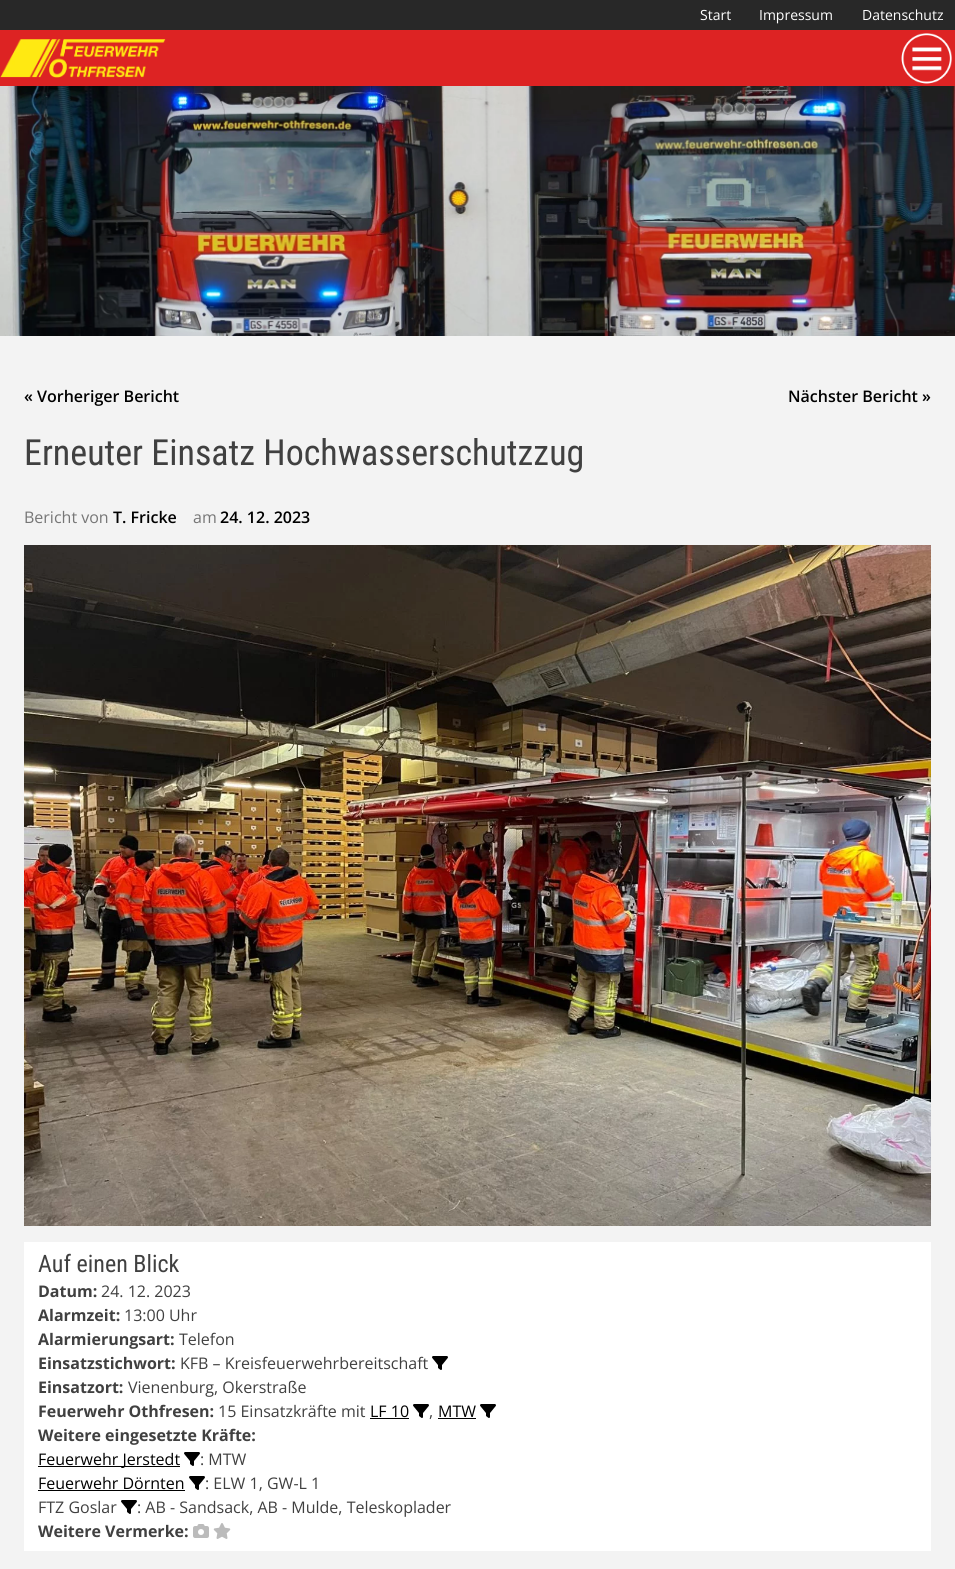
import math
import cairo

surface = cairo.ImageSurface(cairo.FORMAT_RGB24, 955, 1569)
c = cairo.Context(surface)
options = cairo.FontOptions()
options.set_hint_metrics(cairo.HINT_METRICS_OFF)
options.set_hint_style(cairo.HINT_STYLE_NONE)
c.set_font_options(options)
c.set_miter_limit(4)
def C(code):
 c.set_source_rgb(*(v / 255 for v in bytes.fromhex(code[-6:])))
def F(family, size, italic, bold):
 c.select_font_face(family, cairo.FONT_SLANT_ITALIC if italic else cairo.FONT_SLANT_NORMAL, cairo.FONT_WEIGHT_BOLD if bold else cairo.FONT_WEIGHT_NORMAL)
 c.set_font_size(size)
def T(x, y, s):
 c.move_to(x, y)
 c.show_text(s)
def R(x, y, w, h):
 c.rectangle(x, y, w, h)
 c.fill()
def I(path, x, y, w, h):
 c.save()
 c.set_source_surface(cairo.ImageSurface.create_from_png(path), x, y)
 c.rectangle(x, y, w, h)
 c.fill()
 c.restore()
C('f3f3f3')
c.paint()
C('282828')
R(0,0,955,30)
F('Open Sans',14,0,0)
C('ffffff')
T(700,20,'Start')
T(759,20,'Impressum')
T(862,20,'Datenschutz')
C('dd2323')
R(0,30,955,56)
I('1.png',0,39,166,39)
I('2.png',901,33,51,51)
I('3.png',0,86,955,250)
F('Open Sans SemiBold',16,0,0)
C('000000')
T(24,402,'« Vorheriger Bericht')
T(788,402,'Nächster Bericht »')
F('Roboto Condensed',36,0,0)
C('404040')
T(24,465,'Erneuter Einsatz Hochwasserschutzzug')
F('Open Sans',16,0,0)
C('767676')
T(24,523,'Bericht von')
F('Open Sans SemiBold',16,0,0)
C('000000')
T(113,523,'T. Fricke')
F('Open Sans',16,0,0)
C('767676')
T(193,523,'am')
F('Open Sans SemiBold',16,0,0)
C('000000')
T(220,523,'24. 12. 2023')
I('4.png',24,545,907,681)
C('ffffff')
R(24,1242,907,309)
F('Roboto Condensed',24,0,0)
C('404040')
T(38,1272,'Auf einen Blick')
F('Open Sans',16,0,1)
T(38,1297,'Datum:')
F('Open Sans',16,0,0)
T(101,1297,'24. 12. 2023')
F('Open Sans',16,0,1)
T(38,1321,'Alarmzeit:')
F('Open Sans',16,0,0)
T(124,1321,'13:00 Uhr')
F('Open Sans',16,0,1)
T(38,1345,'Alarmierungsart:')
F('Open Sans',16,0,0)
T(179,1345,'Telefon')
F('Open Sans',16,0,1)
T(38,1369,'Einsatzstichwort:')
F('Open Sans',16,0,0)
T(180,1369,'KFB – Kreisfeuerwehrbereitschaft')
I('5.png',432,1356,16,14)
F('Open Sans',16,0,1)
T(38,1393,'Einsatzort:')
F('Open Sans',16,0,0)
T(128,1393,'Vienenburg, Okerstraße')
F('Open Sans',16,0,1)
T(38,1417,'Feuerwehr Othfresen:')
F('Open Sans',16,0,0)
T(218,1417,'15 Einsatzkräfte mit')
C('000000')
T(370,1417,'LF 10')
R(370,1418,39,1)
I('5.png',413,1404,16,14)
T(438,1417,'MTW')
R(438,1418,38,1)
I('5.png',480,1404,16,14)
C('404040')
T(429,1417,',')
F('Open Sans',16,0,1)
T(38,1441,'Weitere eingesetzte Kräfte:')
C('000000')
R(38,1466,142,1)
F('Open Sans',16,0,0)
T(38,1465,'Feuerwehr Jerstedt')
I('5.png',184,1452,16,14)
C('404040')
T(200,1465,': MTW')
C('000000')
T(38,1489,'Feuerwehr Dörnten')
R(38,1490,147,1)
I('5.png',189,1476,16,14)
C('404040')
T(205,1489,': ELW 1, GW-L 1')
T(38,1513,'FTZ Goslar')
I('5.png',121,1500,16,14)
T(137,1513,': AB - Sandsack, AB - Mulde, Teleskoplader')
F('Open Sans',16,0,1)
T(38,1537,'Weitere Vermerke:')
I('6.png',193,1524,16,14)
I('7.png',213,1523,18,16)
surface.write_to_png('o.png')
